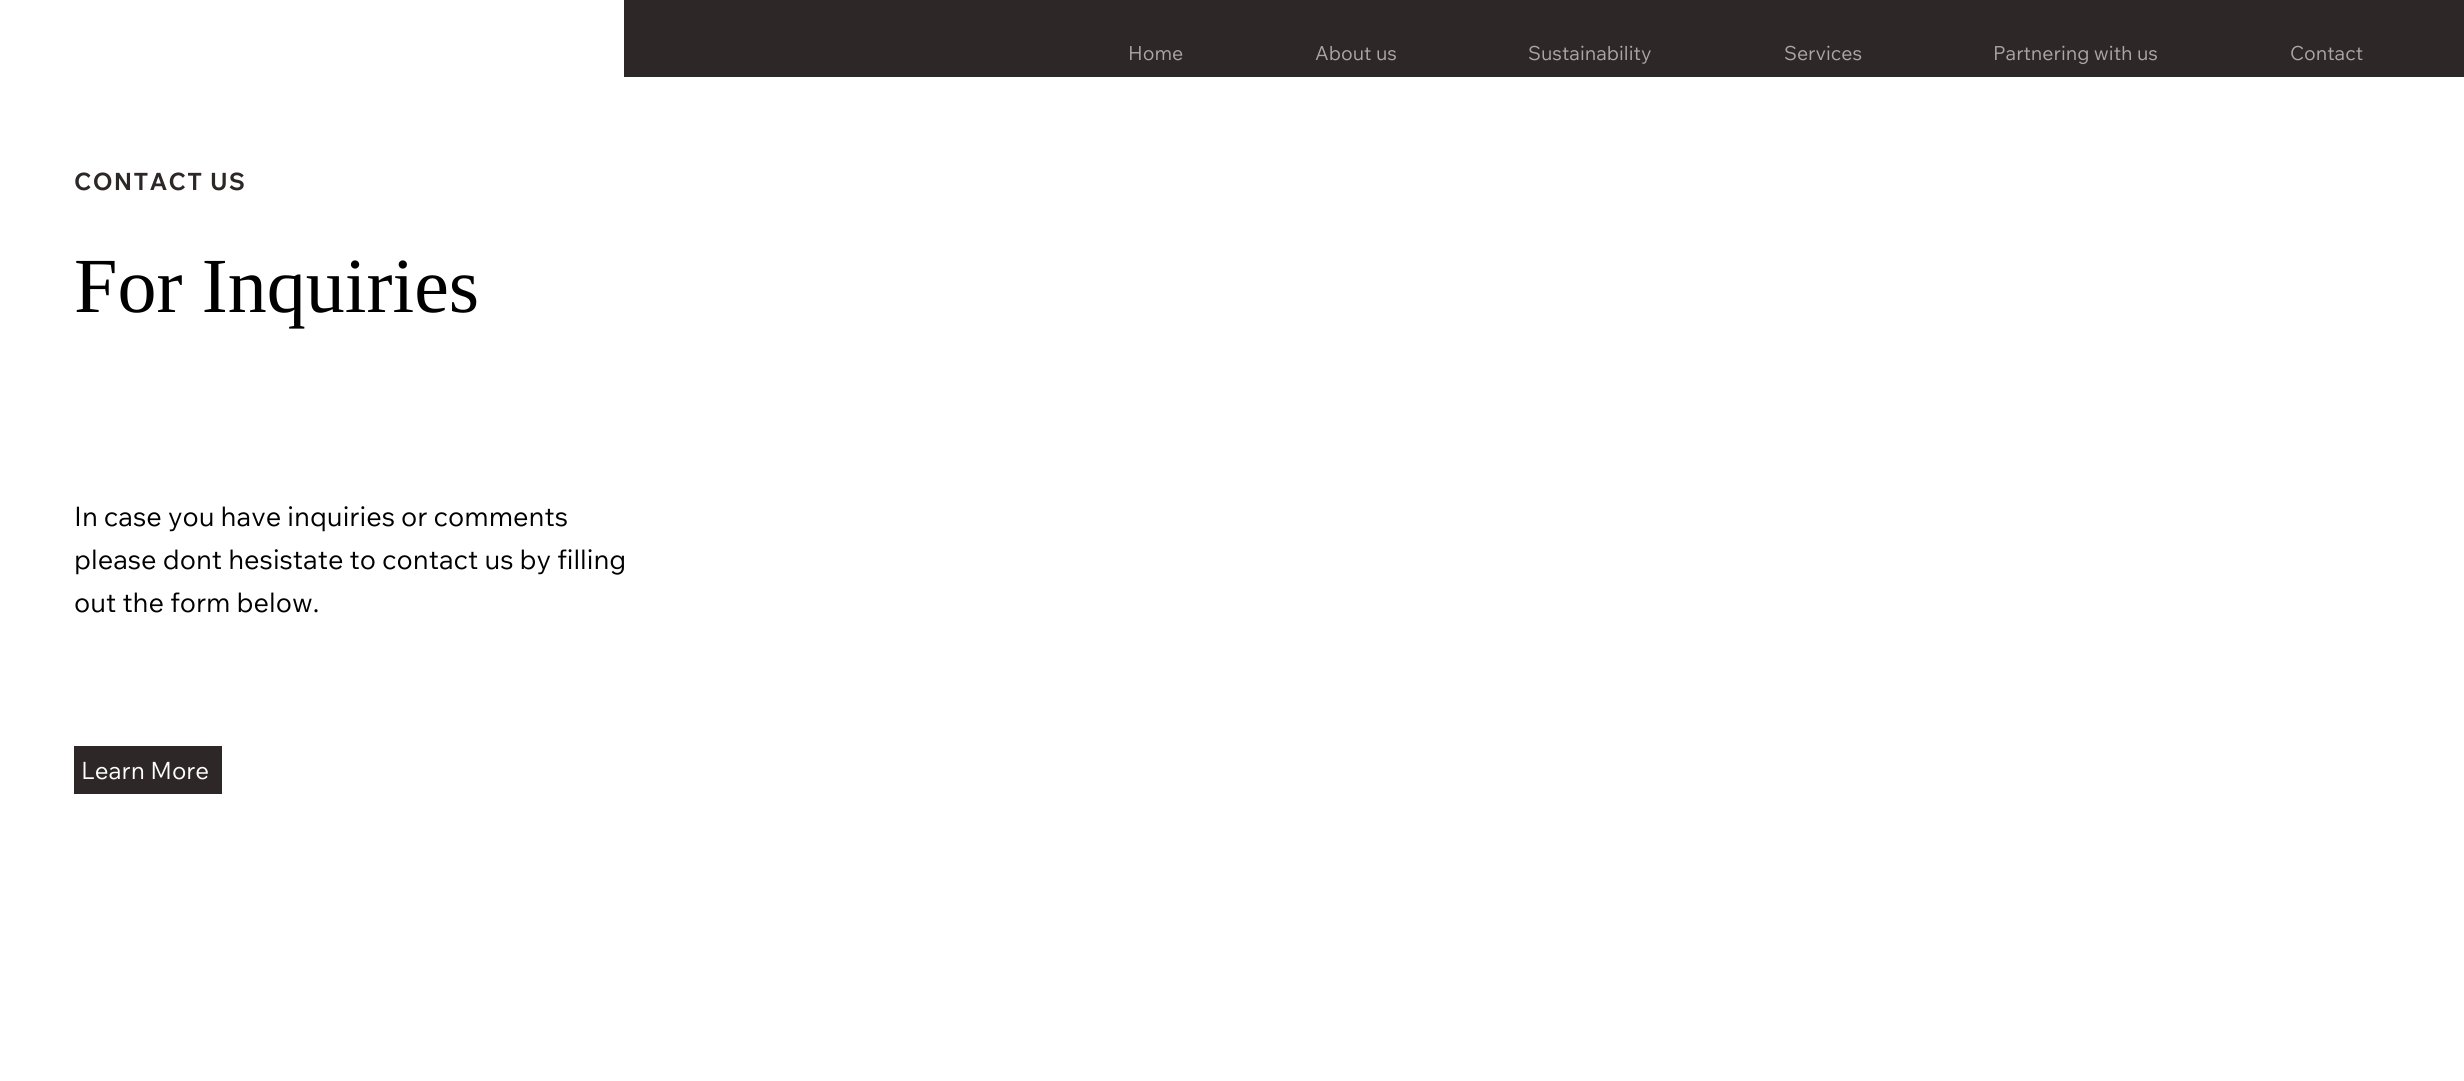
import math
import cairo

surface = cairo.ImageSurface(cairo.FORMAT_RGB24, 2464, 1081)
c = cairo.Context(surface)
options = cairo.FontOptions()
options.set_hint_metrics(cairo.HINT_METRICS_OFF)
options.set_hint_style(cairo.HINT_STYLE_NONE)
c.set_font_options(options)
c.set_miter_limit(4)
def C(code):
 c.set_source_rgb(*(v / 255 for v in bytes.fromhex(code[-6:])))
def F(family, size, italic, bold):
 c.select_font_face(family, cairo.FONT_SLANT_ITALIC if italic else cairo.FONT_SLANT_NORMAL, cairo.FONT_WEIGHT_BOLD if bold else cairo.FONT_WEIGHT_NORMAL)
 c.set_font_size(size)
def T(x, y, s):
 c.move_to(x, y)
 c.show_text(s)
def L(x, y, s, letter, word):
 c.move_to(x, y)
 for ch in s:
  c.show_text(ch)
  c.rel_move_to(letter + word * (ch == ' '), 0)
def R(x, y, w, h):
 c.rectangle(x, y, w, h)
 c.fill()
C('ffffff')
c.paint()
C('2d2727')
R(624,0,1840,77)
F('Wix Madefor Text',19.5,0,0)
C('aba5a5')
T(1128,60,'Home')
T(1315,60,'About us')
T(1528,60,'Sustainability')
T(1784,60,'Services')
T(1993,60,'Partnering with us')
T(2290,60,'Contact')
F('Wix Madefor Text',24,0,1)
C('2d2727')
L(74,190,'CONTACT US',1.25,0)
F('Liberation Serif',78,0,0)
C('000000')
T(74,312,'For Inquiries')
F('Wix Madefor Text',27,0,0)
T(74,526,'In case you have inquiries or comments')
T(74,569,'please dont hesistate to contact us by filling')
T(74,612,'out the form below.')
C('2d2727')
R(74,746,148,48)
F('Wix Madefor Text',24,0,0)
C('ffffff')
T(81,779,'Learn More')
surface.write_to_png('o.png')
